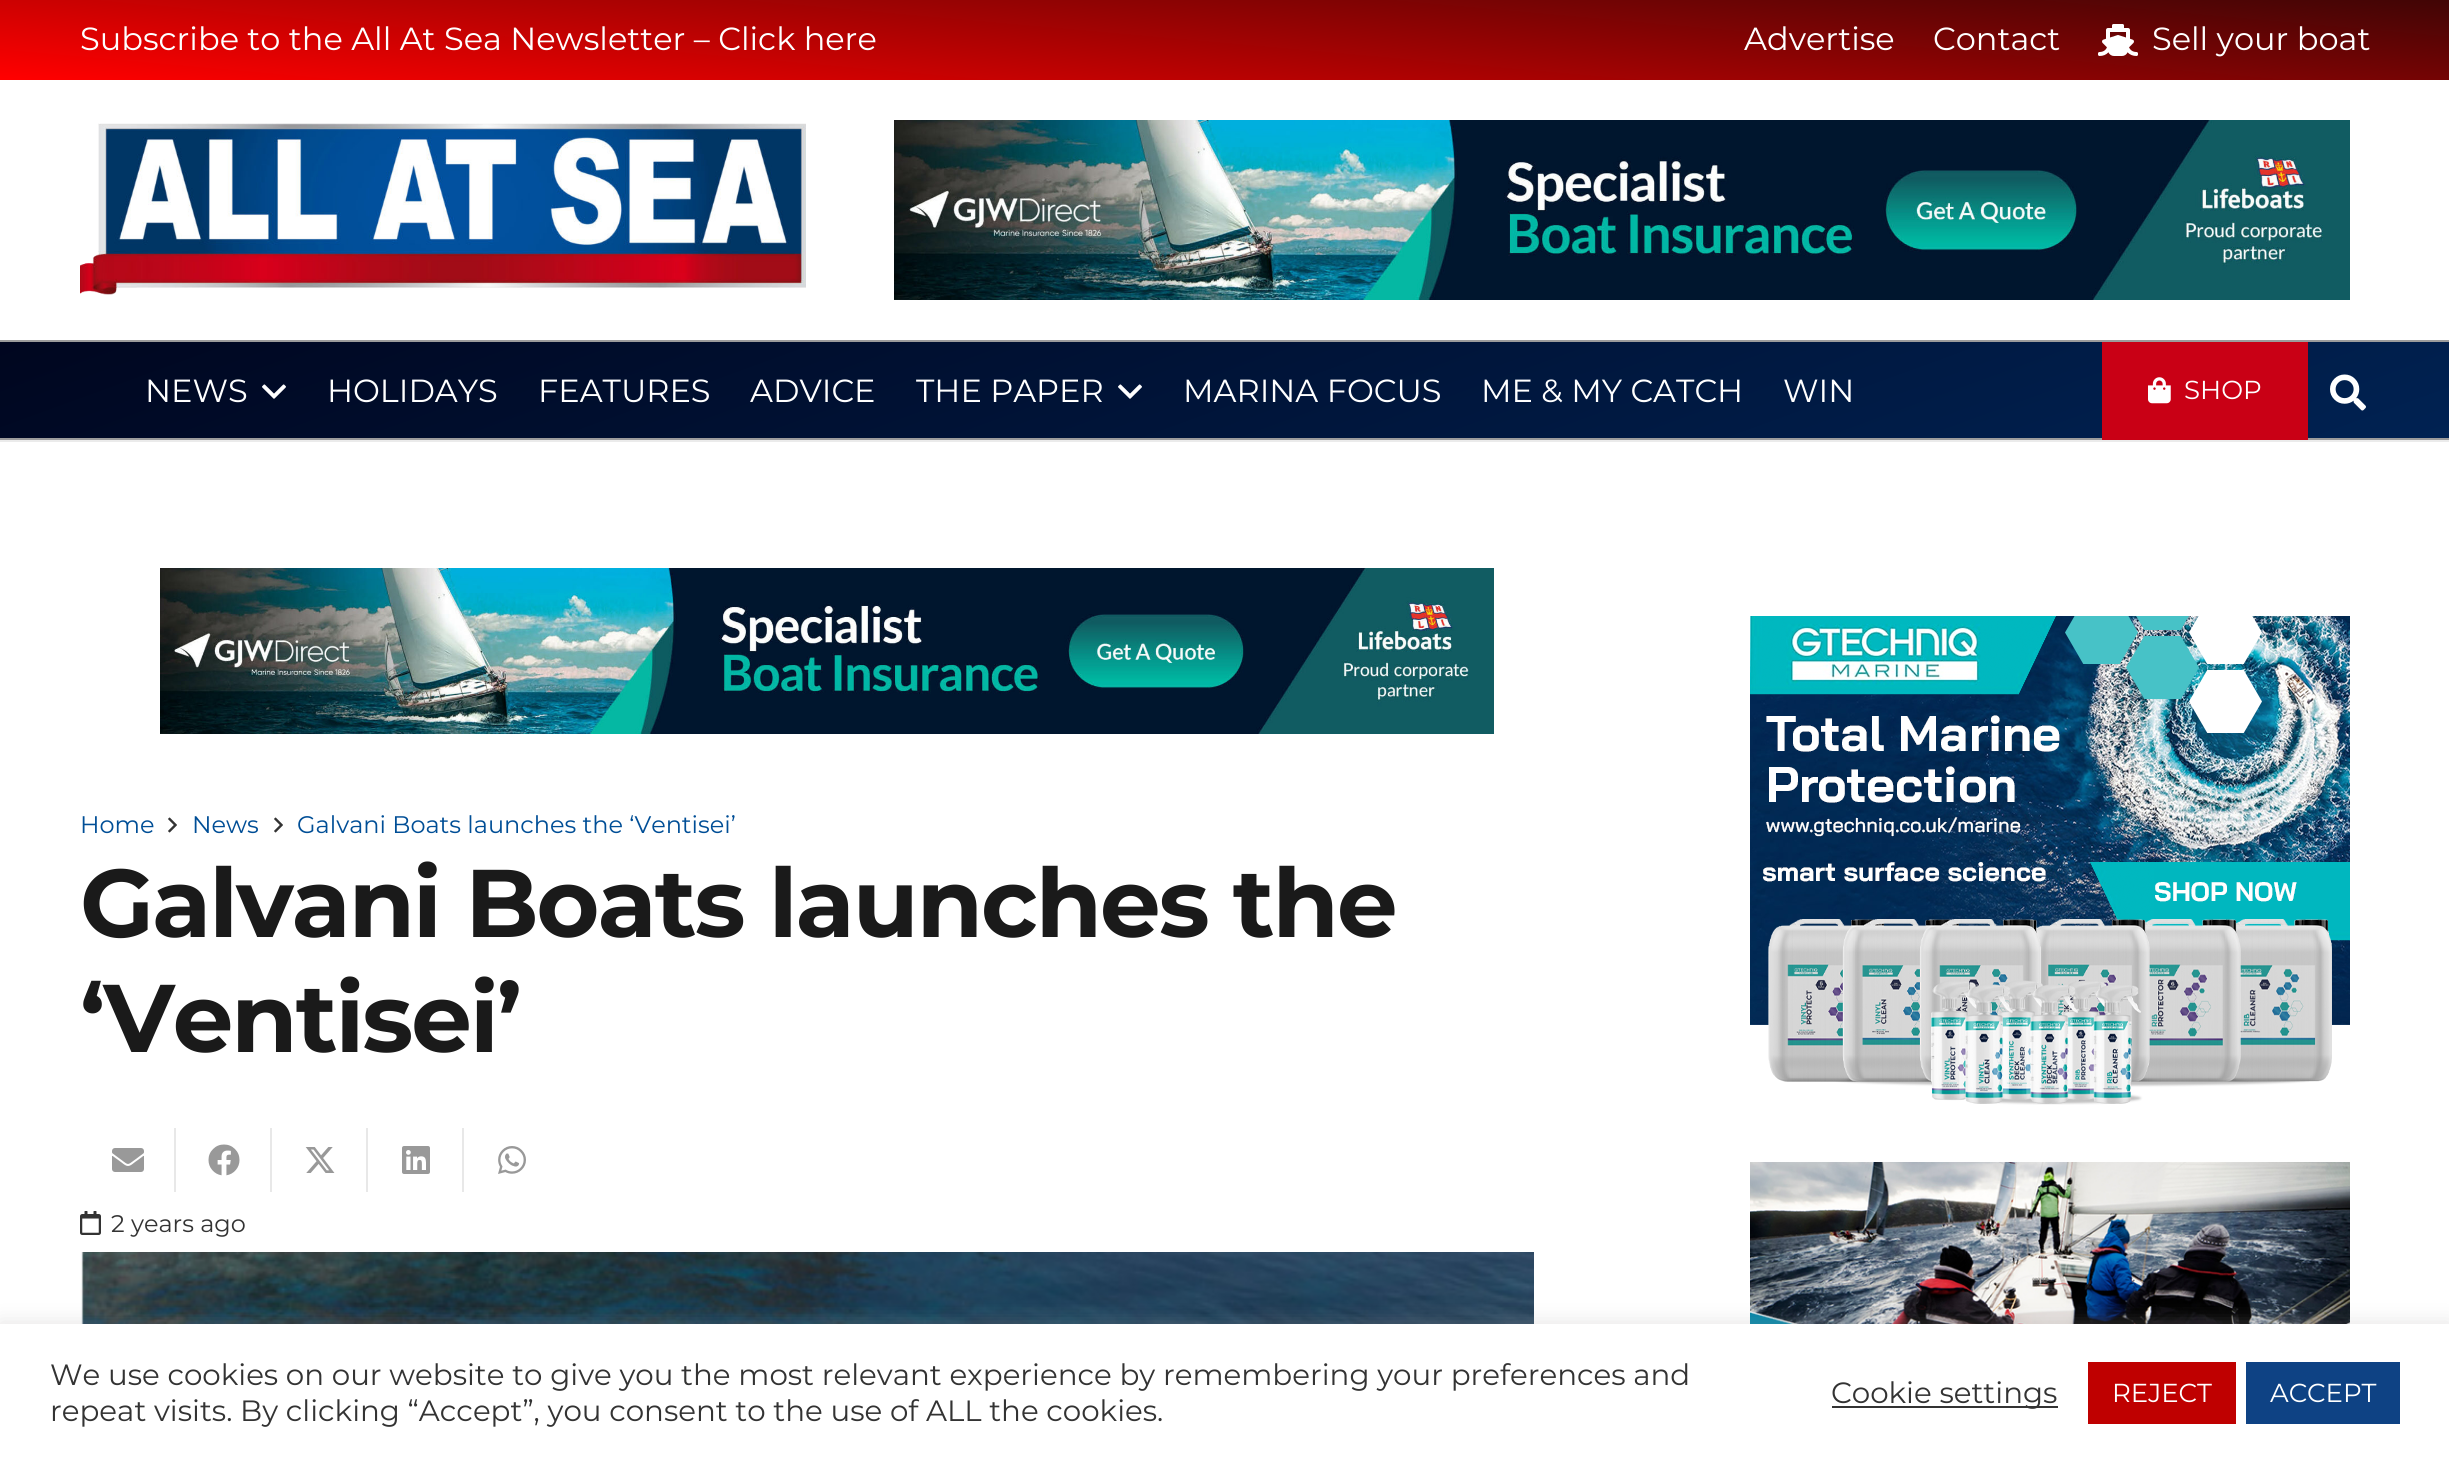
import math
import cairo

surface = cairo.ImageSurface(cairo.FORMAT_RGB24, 2449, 1462)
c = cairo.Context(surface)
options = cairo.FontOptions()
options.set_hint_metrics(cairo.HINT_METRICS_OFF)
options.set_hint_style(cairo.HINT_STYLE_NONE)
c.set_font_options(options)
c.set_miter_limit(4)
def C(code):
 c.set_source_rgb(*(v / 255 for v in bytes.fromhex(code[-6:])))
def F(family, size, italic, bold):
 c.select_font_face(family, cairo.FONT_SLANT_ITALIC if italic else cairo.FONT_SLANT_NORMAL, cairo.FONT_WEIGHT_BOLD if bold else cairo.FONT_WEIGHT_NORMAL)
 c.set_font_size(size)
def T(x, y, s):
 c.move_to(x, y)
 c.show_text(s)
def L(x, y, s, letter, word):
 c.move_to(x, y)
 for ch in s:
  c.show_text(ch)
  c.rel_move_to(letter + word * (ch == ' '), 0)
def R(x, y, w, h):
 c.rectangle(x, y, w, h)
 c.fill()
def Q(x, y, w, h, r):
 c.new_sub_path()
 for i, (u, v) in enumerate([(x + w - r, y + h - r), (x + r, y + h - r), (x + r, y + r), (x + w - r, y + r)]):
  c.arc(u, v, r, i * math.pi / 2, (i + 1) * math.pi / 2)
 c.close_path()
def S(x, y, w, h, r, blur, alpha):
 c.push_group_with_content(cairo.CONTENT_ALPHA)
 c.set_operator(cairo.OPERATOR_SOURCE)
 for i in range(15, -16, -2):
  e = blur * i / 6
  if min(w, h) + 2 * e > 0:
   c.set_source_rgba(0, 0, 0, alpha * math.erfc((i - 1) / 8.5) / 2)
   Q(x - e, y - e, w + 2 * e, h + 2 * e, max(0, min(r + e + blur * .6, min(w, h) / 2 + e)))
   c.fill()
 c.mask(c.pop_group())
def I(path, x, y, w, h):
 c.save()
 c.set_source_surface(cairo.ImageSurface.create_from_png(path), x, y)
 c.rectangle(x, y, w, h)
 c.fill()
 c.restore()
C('ffffff')
c.paint()
gradient = cairo.LinearGradient(1212,186,1238,-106)
gradient.add_color_stop_rgba(0,1,0,0,1)
gradient.add_color_stop_rgba(1,0.259,0.02,0.02,1)
c.set_source(gradient)
R(0,0,2449,80)
F('Montserrat',32,0,0)
C('ffffff')
T(80,50,'Subscribe to the All At Sea Newsletter – Click here')
T(1744,50,'Advertise')
T(1933,50,'Contact')
I('1.png',2098,24,40,32)
T(2152,50,'Sell your boat')
I('2.png',80,123,726,172)
I('3.png',894,120,1456,180)
C('ebebeb')
R(0,440,2449,2)
gradient = cairo.LinearGradient(1066,-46,1384,826)
gradient.add_color_stop_rgba(0,0,0.024,0.122,1)
gradient.add_color_stop_rgba(1,0,0.133,0.322,1)
c.set_source(gradient)
R(0,342,2449,96)
C('9c9c9c')
R(0,340,2449,2)
R(0,438,2449,2)
C('ffffff')
T(145,402,'NEWS')
I('4.png',262,384,24,15)
T(327,402,'HOLIDAYS')
T(538,402,'FEATURES')
T(750,402,'ADVICE')
T(916,402,'THE PAPER')
I('5.png',1118,384,24,15)
T(1183,402,'MARINA FOCUS')
T(1481,402,'ME & MY CATCH')
T(1783,402,'WIN')
C('c90015')
R(2102,342,206,98)
I('6.png',2148,377,23,27)
F('Montserrat',26,0,0)
C('ffffff')
T(2184,399,'SHOP')
I('7.png',2330,374,36,37)
I('8.png',160,568,1334,166)
F('Montserrat',24,0,0)
C('004e96')
T(80,833,'Home')
I('9.png',168,817,9,16)
T(192,833,'News')
I('9.png',274,817,9,16)
T(297,833,'Galvani Boats launches the ‘Ventisei’')
F('Montserrat',96,0,1)
C('1a1a1a')
L(80,937,'Galvani Boats launches the',-2,0)
L(80,1052,'‘Ventisei’',-2,0)
C('e8e8e8')
R(174,1128,2,64)
I('10.png',112,1148,32,24)
R(270,1128,2,64)
I('11.png',208,1144,32,32)
R(366,1128,2,64)
I('12.png',305,1147,30,26)
R(462,1128,2,64)
I('13.png',402,1146,28,28)
I('14.png',498,1146,28,28)
I('15.png',80,1211,21,24)
F('Montserrat',24,0,0)
C('333333')
T(111,1232,'2 years ago')
I('16.png',80,1252,1454,72)
I('17.png',1750,616,600,489)
I('18.png',1750,1162,600,162)
C('acabab')
S(0,1322,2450,138,0,10,.3)
C('ffffff')
R(0,1324,2449,138)
F('Montserrat',29.33,0,0)
C('333333')
T(50,1385,'We use cookies on our website to give you the most relevant experience by remembering your preferences and')
T(50,1421,'repeat visits. By clicking “Accept”, you consent to the use of ALL the cookies.')
R(1832,1406,226,2)
T(1831,1403,'Cookie settings')
C('bf0000')
R(2088,1362,148,62)
F('Montserrat',26,0,0)
C('ffffff')
T(2112,1402,'REJECT')
C('0e4284')
R(2246,1362,154,62)
C('ffffff')
T(2270,1402,'ACCEPT')
surface.write_to_png('o.png')
